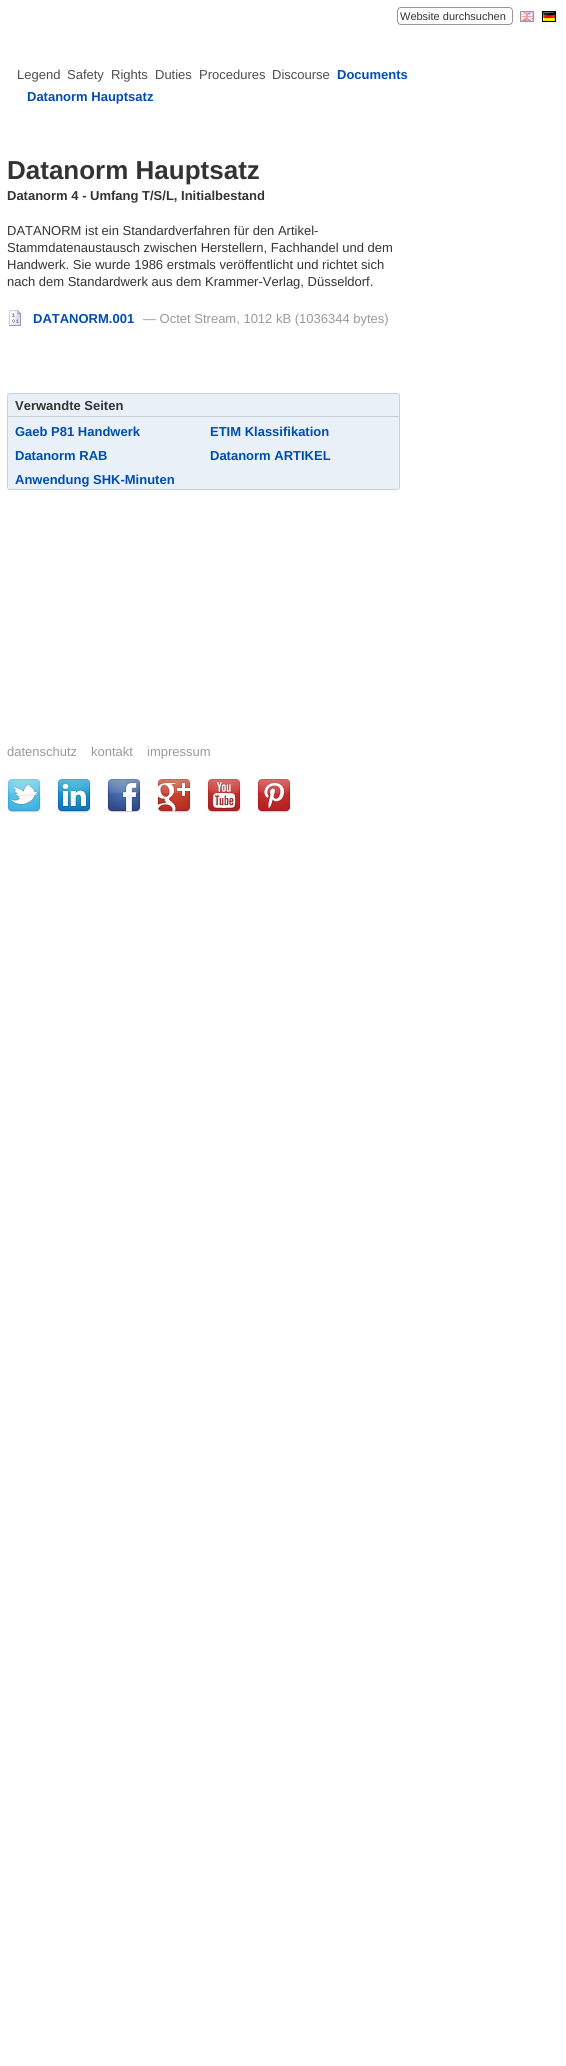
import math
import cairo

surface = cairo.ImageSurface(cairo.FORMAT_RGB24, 566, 2066)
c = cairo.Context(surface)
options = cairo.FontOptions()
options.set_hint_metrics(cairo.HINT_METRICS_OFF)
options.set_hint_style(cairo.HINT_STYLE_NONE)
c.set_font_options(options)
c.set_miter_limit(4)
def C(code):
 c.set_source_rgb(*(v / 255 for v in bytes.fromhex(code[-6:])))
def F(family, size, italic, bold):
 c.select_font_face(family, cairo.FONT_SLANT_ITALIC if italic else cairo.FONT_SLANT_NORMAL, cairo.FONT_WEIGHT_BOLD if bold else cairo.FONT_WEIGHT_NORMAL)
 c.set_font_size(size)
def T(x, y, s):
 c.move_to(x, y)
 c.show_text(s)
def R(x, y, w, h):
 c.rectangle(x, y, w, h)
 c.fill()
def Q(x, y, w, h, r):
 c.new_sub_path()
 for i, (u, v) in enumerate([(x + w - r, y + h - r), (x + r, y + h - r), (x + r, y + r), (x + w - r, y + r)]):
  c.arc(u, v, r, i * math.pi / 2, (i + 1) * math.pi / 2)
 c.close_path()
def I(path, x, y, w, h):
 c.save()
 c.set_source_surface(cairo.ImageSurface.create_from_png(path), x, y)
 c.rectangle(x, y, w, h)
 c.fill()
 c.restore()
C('ffffff')
c.paint()
Q(397.5,7.5,115,17,3.5)
C('969696')
c.set_line_width(1)
c.stroke()
F('Liberation Sans',11,0,0)
C('333333')
T(400,20,'Website durchsuchen')
I('1.png',520,11,14,11)
I('2.png',542,11,14,11)
F('Liberation Sans',13,0,0)
C('4d4d4d')
T(17,79,'Legend')
T(67,79,'Safety')
T(111,79,'Rights')
T(155,79,'Duties')
T(199,79,'Procedures')
T(272,79,'Discourse')
F('Liberation Sans',13,0,1)
C('004db2')
T(337,79,'Documents')
T(27,101,'Datanorm Hauptsatz')
F('Liberation Sans',26,0,1)
C('333333')
T(7,179,'Datanorm Hauptsatz')
F('Liberation Sans',13,0,1)
T(7,200,'Datanorm 4 - Umfang T/S/L, Initialbestand')
F('Liberation Sans',13,0,0)
T(7,235,'DATANORM ist ein Standardverfahren für den Artikel-')
T(7,252,'Stammdatenaustausch zwischen Herstellern, Fachhandel und dem')
T(7,269,'Handwerk. Sie wurde 1986 erstmals veröffentlicht und richtet sich')
T(7,286,'nach dem Standardwerk aus dem Krammer-Verlag, Düsseldorf.')
I('3.png',9,310,12,16)
F('Liberation Sans',13,0,1)
C('004db2')
T(33,323,'DATANORM.001')
F('Liberation Sans',13,0,0)
C('999999')
T(143,323,'— Octet Stream, 1012 kB (1036344 bytes)')
C('e9f0f7')
Q(7.5,393.5,392,96,2.5)
c.fill_preserve()
C('c8d1da')
c.stroke()
R(8,416,391,1)
F('Liberation Sans',13,0,1)
C('333333')
T(15,410,'Verwandte Seiten')
C('004db2')
T(15,436,'Gaeb P81 Handwerk')
T(210,436,'ETIM Klassifikation')
T(15,460,'Datanorm RAB')
T(210,460,'Datanorm ARTIKEL')
T(15,484,'Anwendung SHK-Minuten')
F('Liberation Sans',13,0,0)
C('999999')
T(7,756,'datenschutz')
T(91,756,'kontakt')
T(147,756,'impressum')
I('4.png',7,779,34,34)
I('5.png',57,779,34,34)
I('6.png',107,779,34,34)
I('7.png',157,779,34,34)
I('8.png',207,779,34,34)
I('9.png',257,779,34,34)
surface.write_to_png('o.png')
